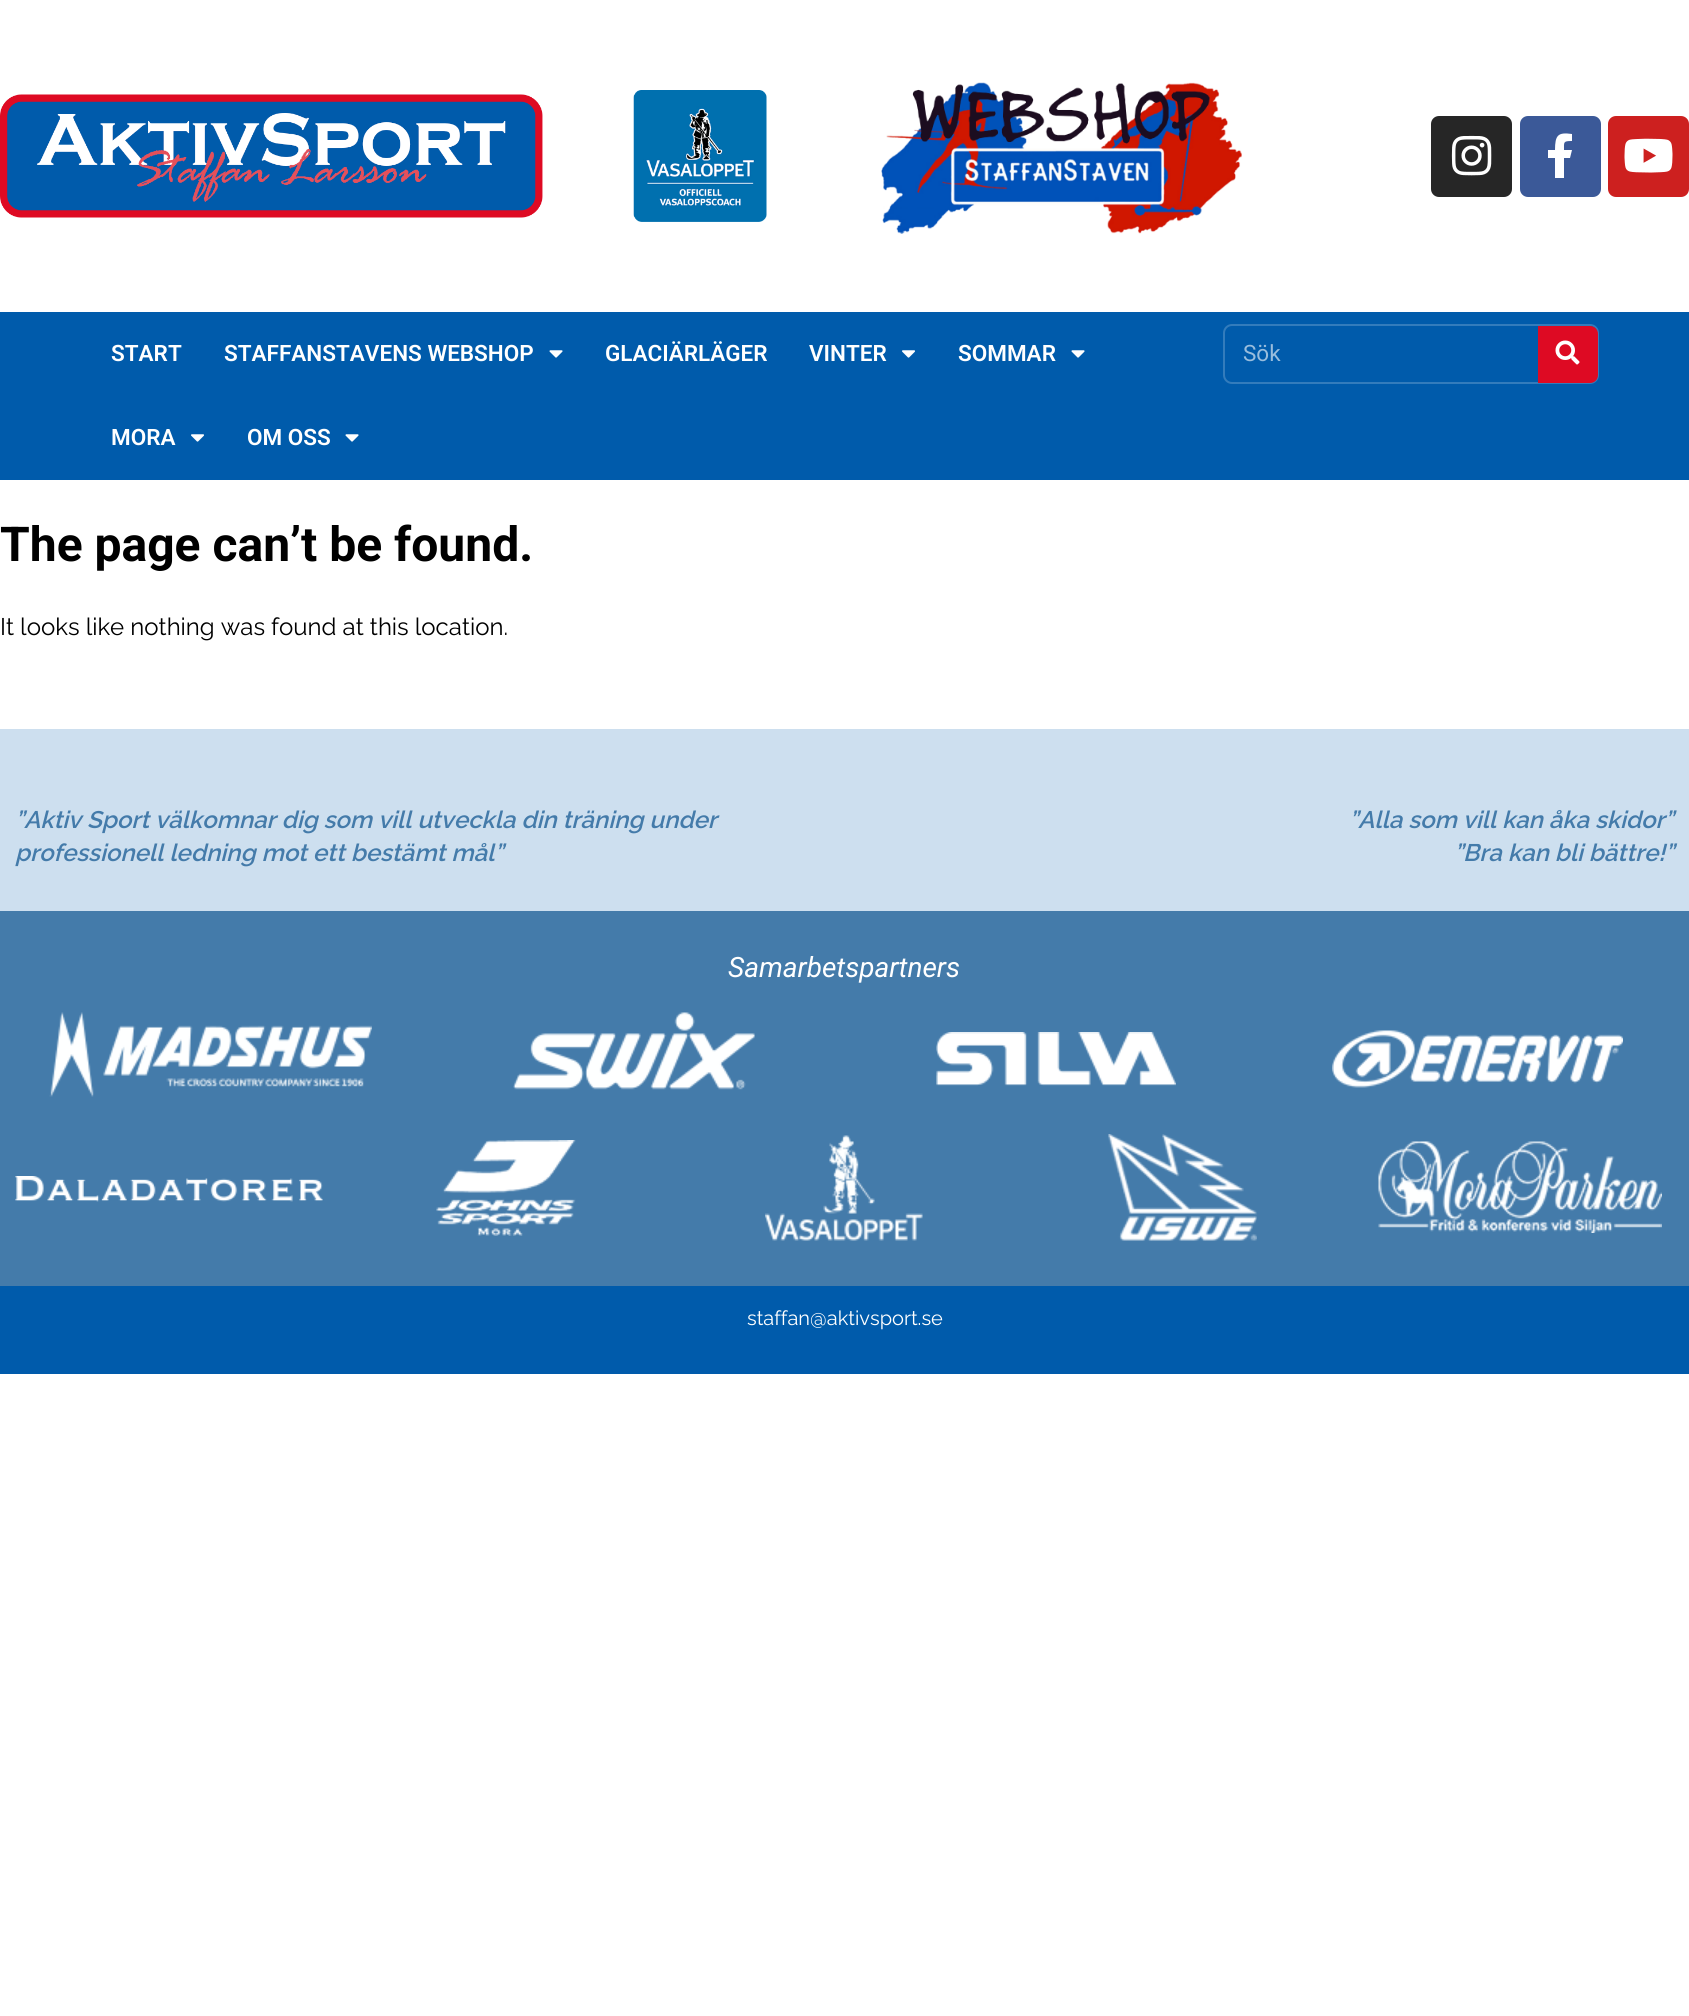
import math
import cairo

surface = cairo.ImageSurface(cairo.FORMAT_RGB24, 1689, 2016)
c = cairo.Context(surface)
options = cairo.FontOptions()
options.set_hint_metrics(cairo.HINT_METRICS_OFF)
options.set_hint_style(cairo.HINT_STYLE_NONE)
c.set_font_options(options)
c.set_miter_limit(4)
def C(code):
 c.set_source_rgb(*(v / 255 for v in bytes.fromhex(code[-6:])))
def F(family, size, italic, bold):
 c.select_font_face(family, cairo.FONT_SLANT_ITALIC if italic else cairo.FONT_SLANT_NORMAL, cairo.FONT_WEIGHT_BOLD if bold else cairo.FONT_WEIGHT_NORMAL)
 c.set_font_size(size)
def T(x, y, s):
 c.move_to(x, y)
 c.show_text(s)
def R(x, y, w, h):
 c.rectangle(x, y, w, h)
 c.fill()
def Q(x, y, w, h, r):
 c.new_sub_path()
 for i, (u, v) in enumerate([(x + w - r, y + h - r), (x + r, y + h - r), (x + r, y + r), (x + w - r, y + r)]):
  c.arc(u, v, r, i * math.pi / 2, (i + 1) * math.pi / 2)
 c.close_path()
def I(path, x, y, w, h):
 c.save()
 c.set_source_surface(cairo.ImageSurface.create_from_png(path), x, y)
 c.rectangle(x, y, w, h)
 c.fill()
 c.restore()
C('ffffff')
c.paint()
I('1.png',0,94,543,124)
I('2.png',633,90,134,132)
I('3.png',881,82,361,152)
C('262626')
Q(1431,116,81,81,8)
c.fill()
I('4.png',1451,135,41,41)
C('3b5998')
Q(1520,116,81,81,8)
c.fill()
C('ffffff')
c.new_path()
c.move_to(1570,158)
c.line_to(1564,158)
c.line_to(1564,178)
c.line_to(1555,178)
c.line_to(1555,158)
c.line_to(1548,158)
c.line_to(1548,150)
c.line_to(1555,150)
c.curve_to(1555,135,1558,132,1572,134)
c.line_to(1572,141)
c.curve_to(1563,141,1564,142,1564,150)
c.line_to(1572,150)
c.close_path()
c.fill()
C('cd201f')
Q(1608,116,81,81,8)
c.fill()
I('5.png',1624,138,49,35)
C('005bab')
R(0,312,1689,168)
F('Roboto SemiBold',22.5,0,0)
C('ffffff')
T(111,361,'START')
T(224,361,'STAFFANSTAVENS WEBSHOP')
I('6.png',549,350,14,8)
T(605,361,'GLACIÄRLÄGER')
T(809,361,'VINTER')
I('7.png',902,350,13,8)
T(958,361,'SOMMAR')
I('6.png',1071,350,14,8)
T(111,445,'MORA')
I('7.png',191,434,13,8)
T(247,445,'OM OSS')
I('6.png',345,434,14,8)
Q(1224,325,374,58,8)
C('337cbc')
c.stroke()
F('Roboto',22.5,0,0)
C('99bddd')
T(1243,361,'Sök')
C('de0a23')
c.new_path()
c.move_to(1538,326)
c.line_to(1590,326)
c.curve_to(1594.5,326,1598,329.5,1598,334)
c.line_to(1598,375)
c.curve_to(1598,379.5,1594.5,383,1590,383)
c.line_to(1538,383)
c.close_path()
c.fill()
I('8.png',1555,340,25,25)
F('Roboto',48,0,1)
C('000000')
T(0,561,'The page can’t be found.')
F('Raleway',24,0,0)
T(0,635,'It looks like nothing was found at this location.')
C('cddfef')
R(0,729,1689,182)
F('Raleway SemiBold',24,1,0)
C('447baa')
T(15,828,'”Aktiv Sport välkomnar dig som vill utveckla din träning under')
T(15,861,'professionell ledning mot ett bestämt mål”')
T(1349,828,'”Alla som vill kan åka skidor”')
T(1454,861,'”Bra kan bli bättre!”')
R(0,911,1689,375)
F('Roboto',28,1,0)
C('ffffff')
T(728,977,'Samarbetspartners')
I('9.png',49,1012,323,85)
I('10.png',513,1012,242,78)
I('11.png',936,1032,240,54)
I('12.png',1332,1030,291,58)
I('13.png',15,1176,308,26)
I('14.png',436,1140,140,96)
I('15.png',765,1135,158,106)
I('16.png',1108,1134,149,107)
I('17.png',1378,1141,284,92)
C('005bab')
R(0,1286,1689,88)
F('Raleway',20,0,0)
C('ffffff')
T(747,1325,'staffan@aktivsport.se')
surface.write_to_png('o.png')
